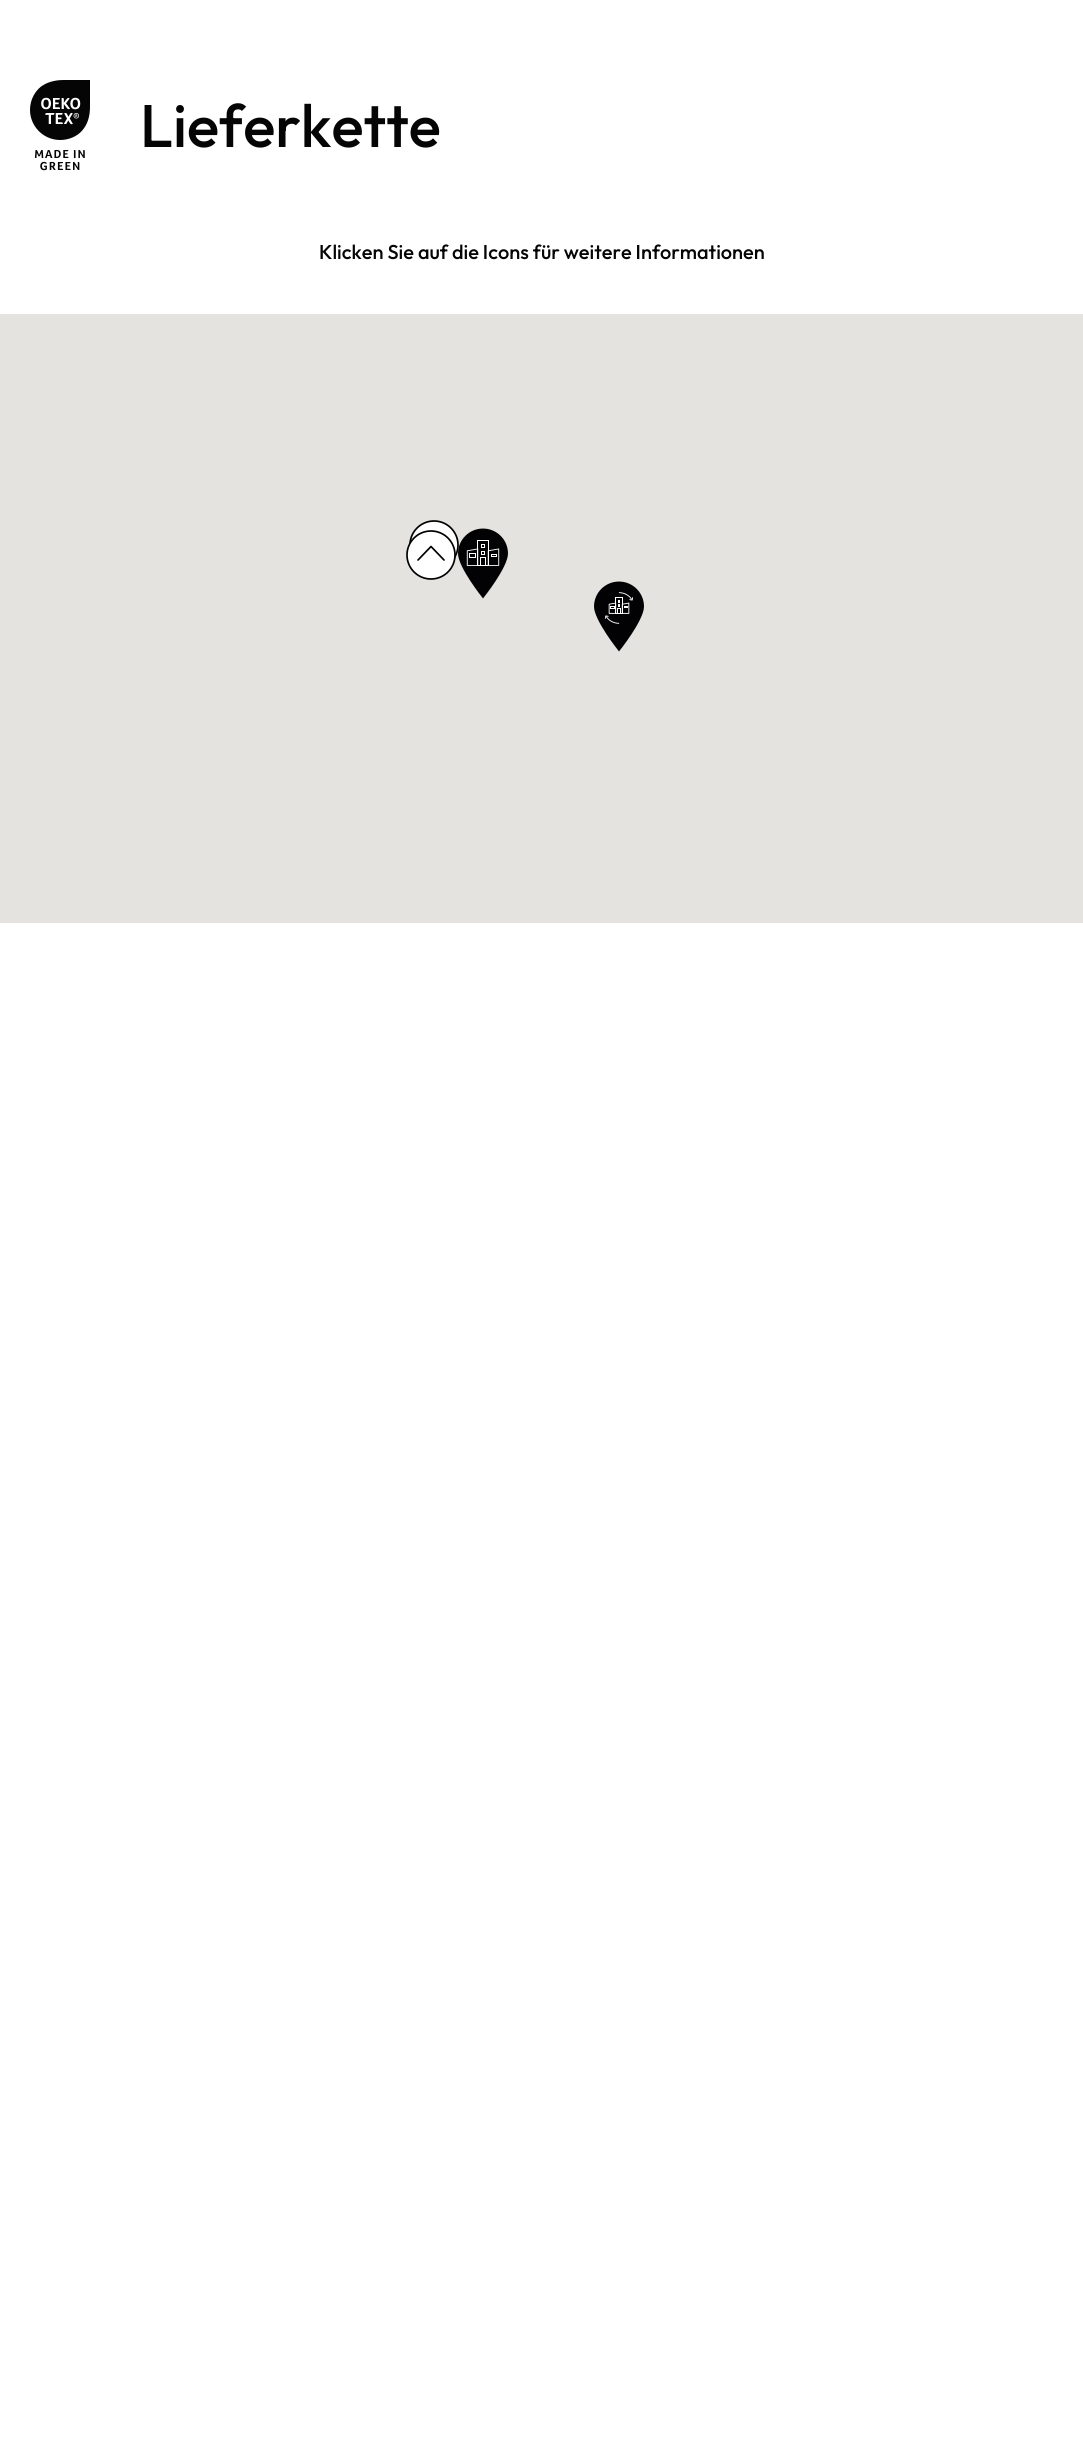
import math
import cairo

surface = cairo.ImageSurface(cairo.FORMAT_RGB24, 1083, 2440)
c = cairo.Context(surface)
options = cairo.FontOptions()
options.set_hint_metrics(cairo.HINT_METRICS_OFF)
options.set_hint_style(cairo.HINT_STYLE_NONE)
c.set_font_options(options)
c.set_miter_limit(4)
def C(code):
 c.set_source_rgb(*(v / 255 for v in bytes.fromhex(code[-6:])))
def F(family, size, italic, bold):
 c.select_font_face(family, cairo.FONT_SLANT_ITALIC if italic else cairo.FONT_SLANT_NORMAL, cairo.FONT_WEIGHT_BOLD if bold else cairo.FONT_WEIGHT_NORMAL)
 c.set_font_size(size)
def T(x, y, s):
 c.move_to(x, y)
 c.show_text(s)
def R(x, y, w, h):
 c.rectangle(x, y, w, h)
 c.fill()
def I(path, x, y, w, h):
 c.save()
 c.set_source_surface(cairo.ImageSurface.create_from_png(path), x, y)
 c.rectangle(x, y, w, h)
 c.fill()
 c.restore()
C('ffffff')
c.paint()
I('1.png',30,80,60,91)
F('Outfit Thin',60,0,0)
C('050505')
T(140,147,'Lieferkette')
F('Outfit Thin',20,0,0)
T(319,259,'Klicken Sie auf die Icons für weitere Informationen')
C('e5e3df')
R(0,314,1083,609)
C('ffffff')
c.new_path()
c.arc(434,545,24,0,2 * math.pi)
c.fill_preserve()
C('000000')
c.set_line_width(1.7)
c.stroke()
I('2.png',458,528,50,71)
C('ffffff')
c.arc(431,555,24,0,2 * math.pi)
c.fill_preserve()
C('000000')
c.stroke()
c.new_path()
c.move_to(431,546.5)
c.line_to(444,560)
c.move_to(431,546.5)
c.line_to(418,560)
c.set_line_cap(cairo.LINE_CAP_ROUND)
c.stroke()
I('3.png',594,581,50,71)
surface.write_to_png('o.png')
